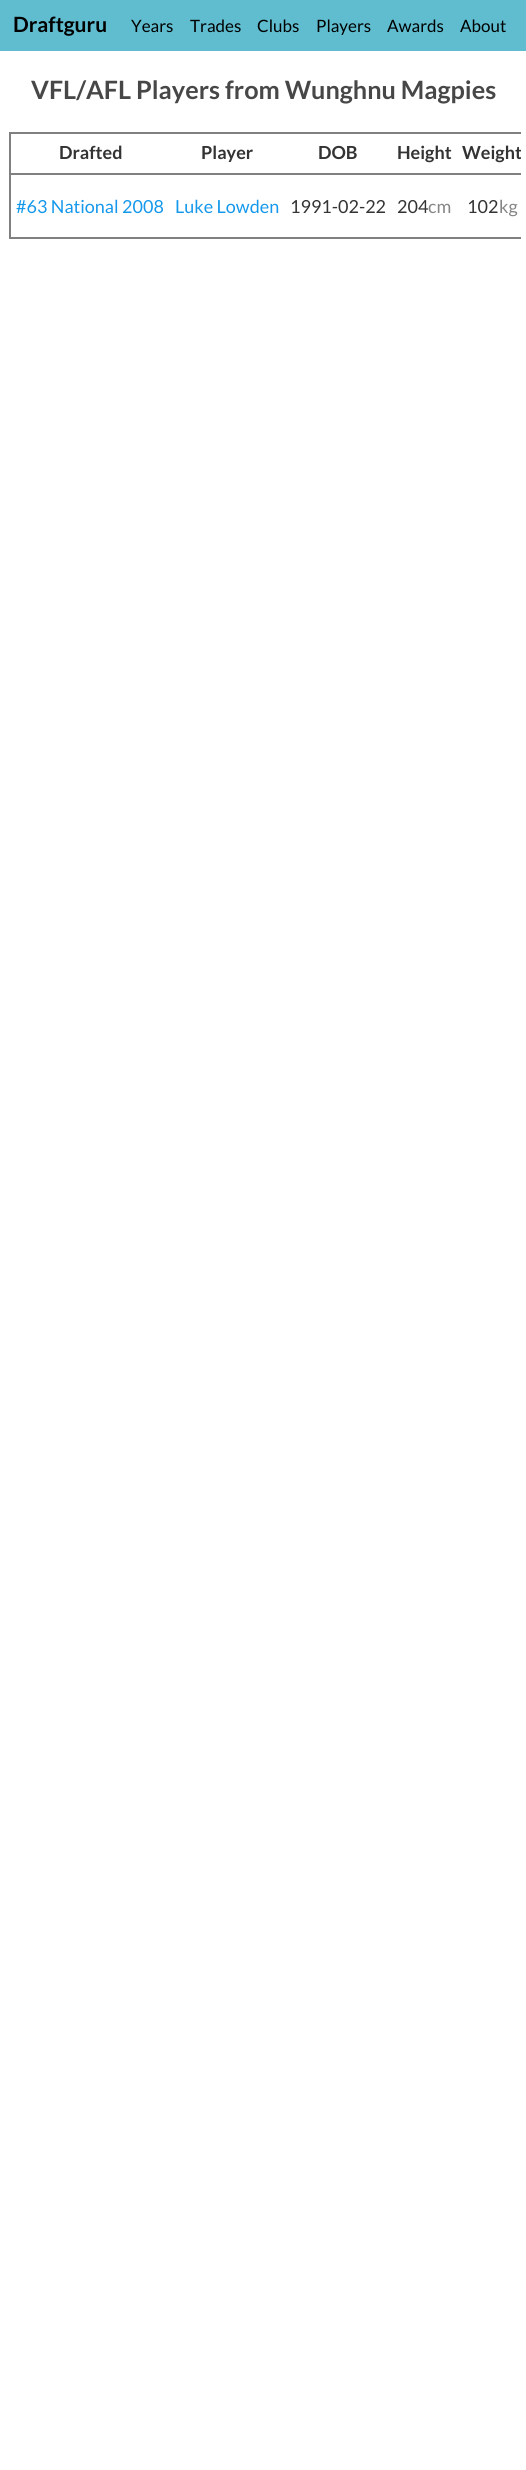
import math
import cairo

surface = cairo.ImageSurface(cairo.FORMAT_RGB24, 526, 2470)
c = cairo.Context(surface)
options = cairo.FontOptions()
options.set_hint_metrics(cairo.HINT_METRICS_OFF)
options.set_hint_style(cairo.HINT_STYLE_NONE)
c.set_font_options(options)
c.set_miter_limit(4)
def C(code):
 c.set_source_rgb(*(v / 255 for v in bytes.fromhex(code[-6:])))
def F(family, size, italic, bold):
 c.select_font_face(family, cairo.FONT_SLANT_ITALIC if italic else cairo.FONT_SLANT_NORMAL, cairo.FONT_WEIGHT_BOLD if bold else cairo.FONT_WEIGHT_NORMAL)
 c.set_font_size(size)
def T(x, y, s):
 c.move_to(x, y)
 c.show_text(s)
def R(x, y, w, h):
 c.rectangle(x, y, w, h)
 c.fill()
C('ffffff')
c.paint()
C('5fbdcf')
R(0,0,526,51)
F('Lato',21,0,1)
C('000000')
T(13,32,'Draftguru')
F('Lato',17,0,0)
T(131,32,'Years')
T(190,32,'Trades')
T(257,32,'Clubs')
T(316,32,'Players')
T(387,32,'Awards')
T(460,32,'About')
F('Lato',25.25,0,1)
C('474747')
T(31,99,'VFL/AFL Players from Wunghnu Magpies')
C('808080')
R(9,132,512,2)
R(9,237,512,2)
R(9,132,2,107)
R(9,173,512,2)
F('Lato',18,0,1)
C('333333')
T(59,159,'Drafted')
T(201,159,'Player')
T(318,159,'DOB')
T(397,159,'Height')
c.save()
c.rectangle(9,132,512,107)
c.clip()
T(462,159,'Weight')
c.restore()
F('Lato',18,0,0)
C('1498eb')
T(16,213,'#63 National 2008')
T(175,213,'Luke Lowden')
C('333333')
T(290,213,'1991-02-22')
T(397,213,'204')
C('858585')
T(428,213,'cm')
C('333333')
T(467,213,'102')
C('858585')
T(499,213,'kg')
surface.write_to_png('o.png')
